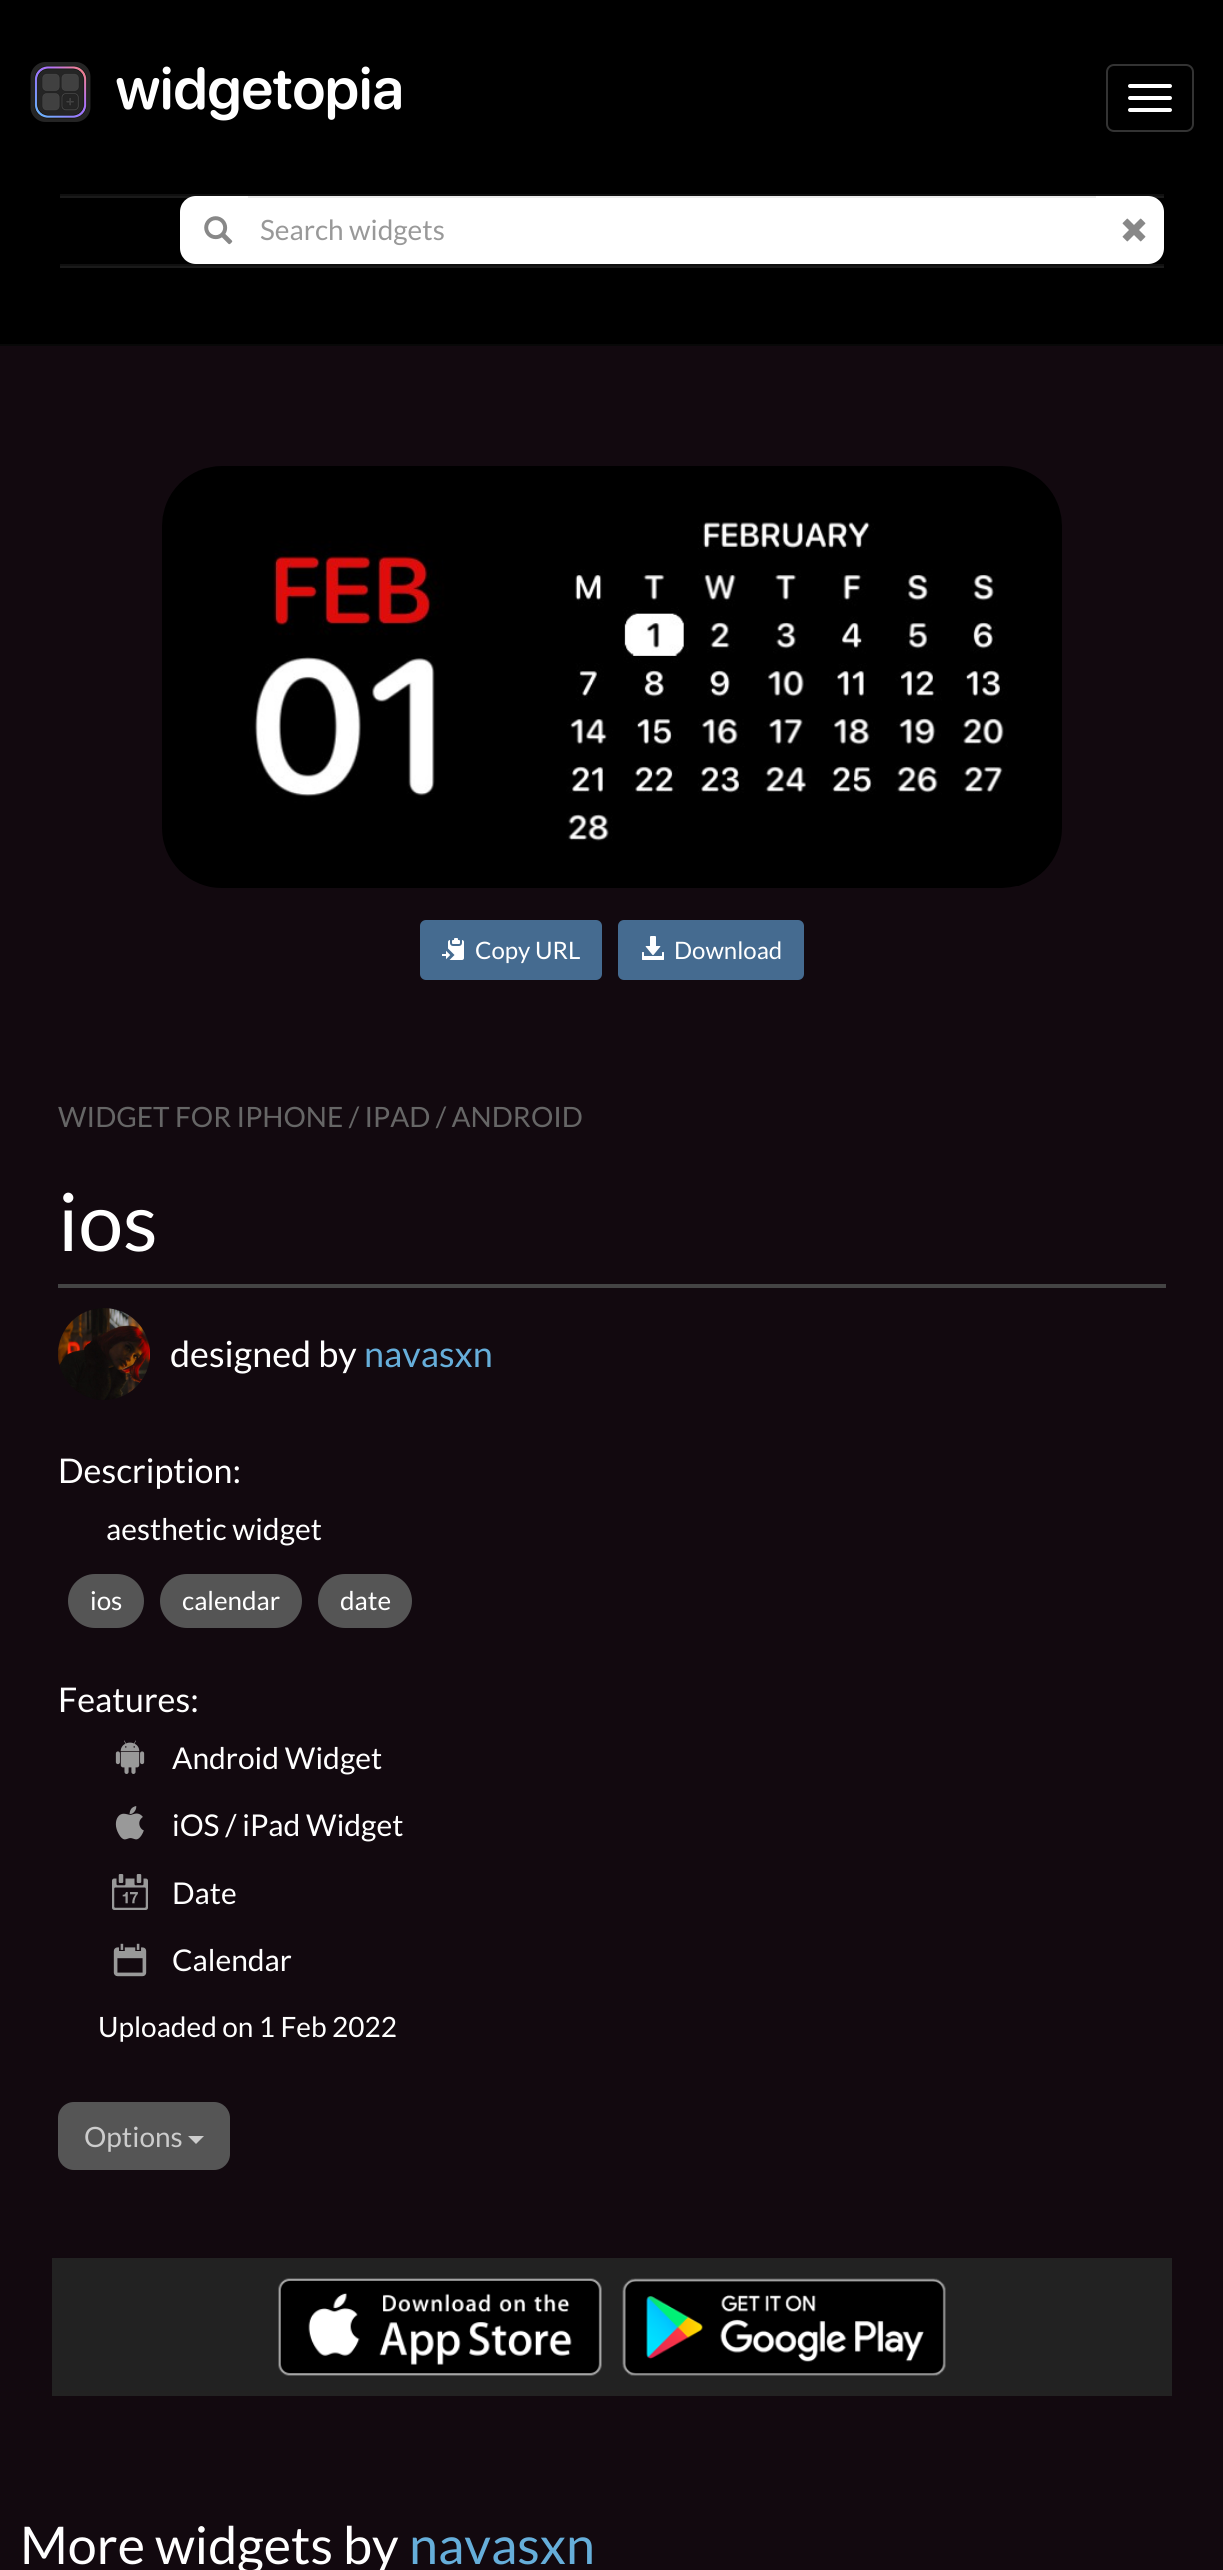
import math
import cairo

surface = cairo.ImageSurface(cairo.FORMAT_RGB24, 1223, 2570)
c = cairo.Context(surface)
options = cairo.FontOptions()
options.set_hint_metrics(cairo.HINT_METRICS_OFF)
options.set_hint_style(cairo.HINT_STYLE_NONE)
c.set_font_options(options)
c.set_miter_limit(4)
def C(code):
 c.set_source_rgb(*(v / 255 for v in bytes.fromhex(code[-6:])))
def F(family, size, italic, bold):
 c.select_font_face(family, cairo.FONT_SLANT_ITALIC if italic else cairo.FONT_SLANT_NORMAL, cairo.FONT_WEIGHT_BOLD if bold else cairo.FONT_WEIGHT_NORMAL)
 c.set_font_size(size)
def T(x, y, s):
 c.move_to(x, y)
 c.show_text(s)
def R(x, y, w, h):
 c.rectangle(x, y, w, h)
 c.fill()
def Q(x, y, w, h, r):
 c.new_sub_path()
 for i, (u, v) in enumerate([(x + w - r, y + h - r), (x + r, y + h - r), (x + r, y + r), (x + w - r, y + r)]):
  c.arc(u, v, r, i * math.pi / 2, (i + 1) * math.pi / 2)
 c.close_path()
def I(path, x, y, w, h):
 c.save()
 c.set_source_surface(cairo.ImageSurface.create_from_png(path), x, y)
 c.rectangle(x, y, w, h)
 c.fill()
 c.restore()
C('12090f')
c.paint()
C('000000')
R(0,0,1223,344)
C('080808')
R(0,344,1223,2)
I('1.png',30,62,371,60)
Q(1107,65,86,66,7)
C('333333')
c.stroke()
C('ffffff')
Q(1128,84,44,4,2)
c.fill()
Q(1128,96,44,4,2)
c.fill()
Q(1128,108,44,4,2)
c.fill()
C('1a1a1a')
R(60,266,1104,2)
R(60,196,1104,2)
C('101010')
R(60,194,1104,2)
R(60,264,1104,2)
C('ffffff')
c.new_path()
c.move_to(196,196)
c.line_to(248,196)
c.line_to(248,264)
c.line_to(196,264)
c.curve_to(187,264,180,257,180,248)
c.line_to(180,212)
c.curve_to(180,203,187,196,196,196)
c.close_path()
c.fill()
I('2.png',204,216,29,29)
R(248,198,848,66)
C('ececec')
R(248,196,848,2)
F('Lato',28,0,0)
C('999999')
T(260,240,'Search widgets')
C('ffffff')
c.new_path()
c.move_to(1096,196)
c.line_to(1148,196)
c.curve_to(1157,196,1164,203,1164,212)
c.line_to(1164,248)
c.curve_to(1164,257,1157,264,1148,264)
c.line_to(1096,264)
c.close_path()
c.fill()
I('3.png',1122,218,24,24)
I('4.png',162,466,900,422)
C('456b90')
Q(420,920,182,60,6)
c.fill()
I('5.png',442,938,22,22)
F('Lato',24,0,0)
C('ffffff')
T(475,959,'Copy URL')
C('456b90')
Q(618,920,186,60,6)
c.fill()
I('6.png',642,936,22,24)
C('ffffff')
T(674,959,'Download')
F('Lato',28,0,0)
C('666666')
T(58,1127,'WIDGET FOR IPHONE / IPAD / ANDROID')
F('Lato',80,0,0)
C('ffffff')
T(58,1251,'ios')
C('444444')
R(58,1284,1108,4)
I('7.png',58,1308,92,92)
F('Lato',36,0,0)
C('ffffff')
T(170,1367,'designed by')
C('66aeda')
T(364,1367,'navasxn')
F('Lato',34,0,0)
C('ffffff')
T(58,1483,'Description:')
F('Lato',30,0,0)
T(106,1540,'aesthetic widget')
C('555555')
Q(68,1574,76,54,27)
c.fill()
F('Lato',26,0,0)
C('ffffff')
T(90,1610,'ios')
C('555555')
Q(160,1574,142,54,27)
c.fill()
C('ffffff')
T(182,1610,'calendar')
C('555555')
Q(318,1574,94,54,27)
c.fill()
C('ffffff')
T(340,1610,'date')
F('Lato',34,0,0)
T(58,1712,'Features:')
I('8.png',115,1740,30,34)
F('Lato',30,0,0)
T(172,1769,'Android Widget')
I('9.png',115,1806,29,34)
T(172,1836,'iOS / iPad Widget')
I('10.png',112,1874,36,36)
T(172,1904,'Date')
I('11.png',113,1943,34,34)
T(172,1971,'Calendar')
F('Lato',28,0,0)
T(98,2037,'Uploaded on 1 Feb 2022')
C('555555')
Q(58,2102,172,68,16)
c.fill()
C('cccccc')
T(84,2147,'Options')
c.new_path()
c.move_to(188,2136)
c.line_to(204,2136)
c.line_to(196,2144)
c.close_path()
c.fill()
C('222222')
R(52,2258,1120,138)
I('12.png',278,2278,324,98)
I('13.png',622,2278,324,98)
F('Lato',52,0,0)
C('ffffff')
T(20,2564,'More widgets by')
C('66aeda')
T(409,2564,'navasxn')
surface.write_to_png('o.png')
